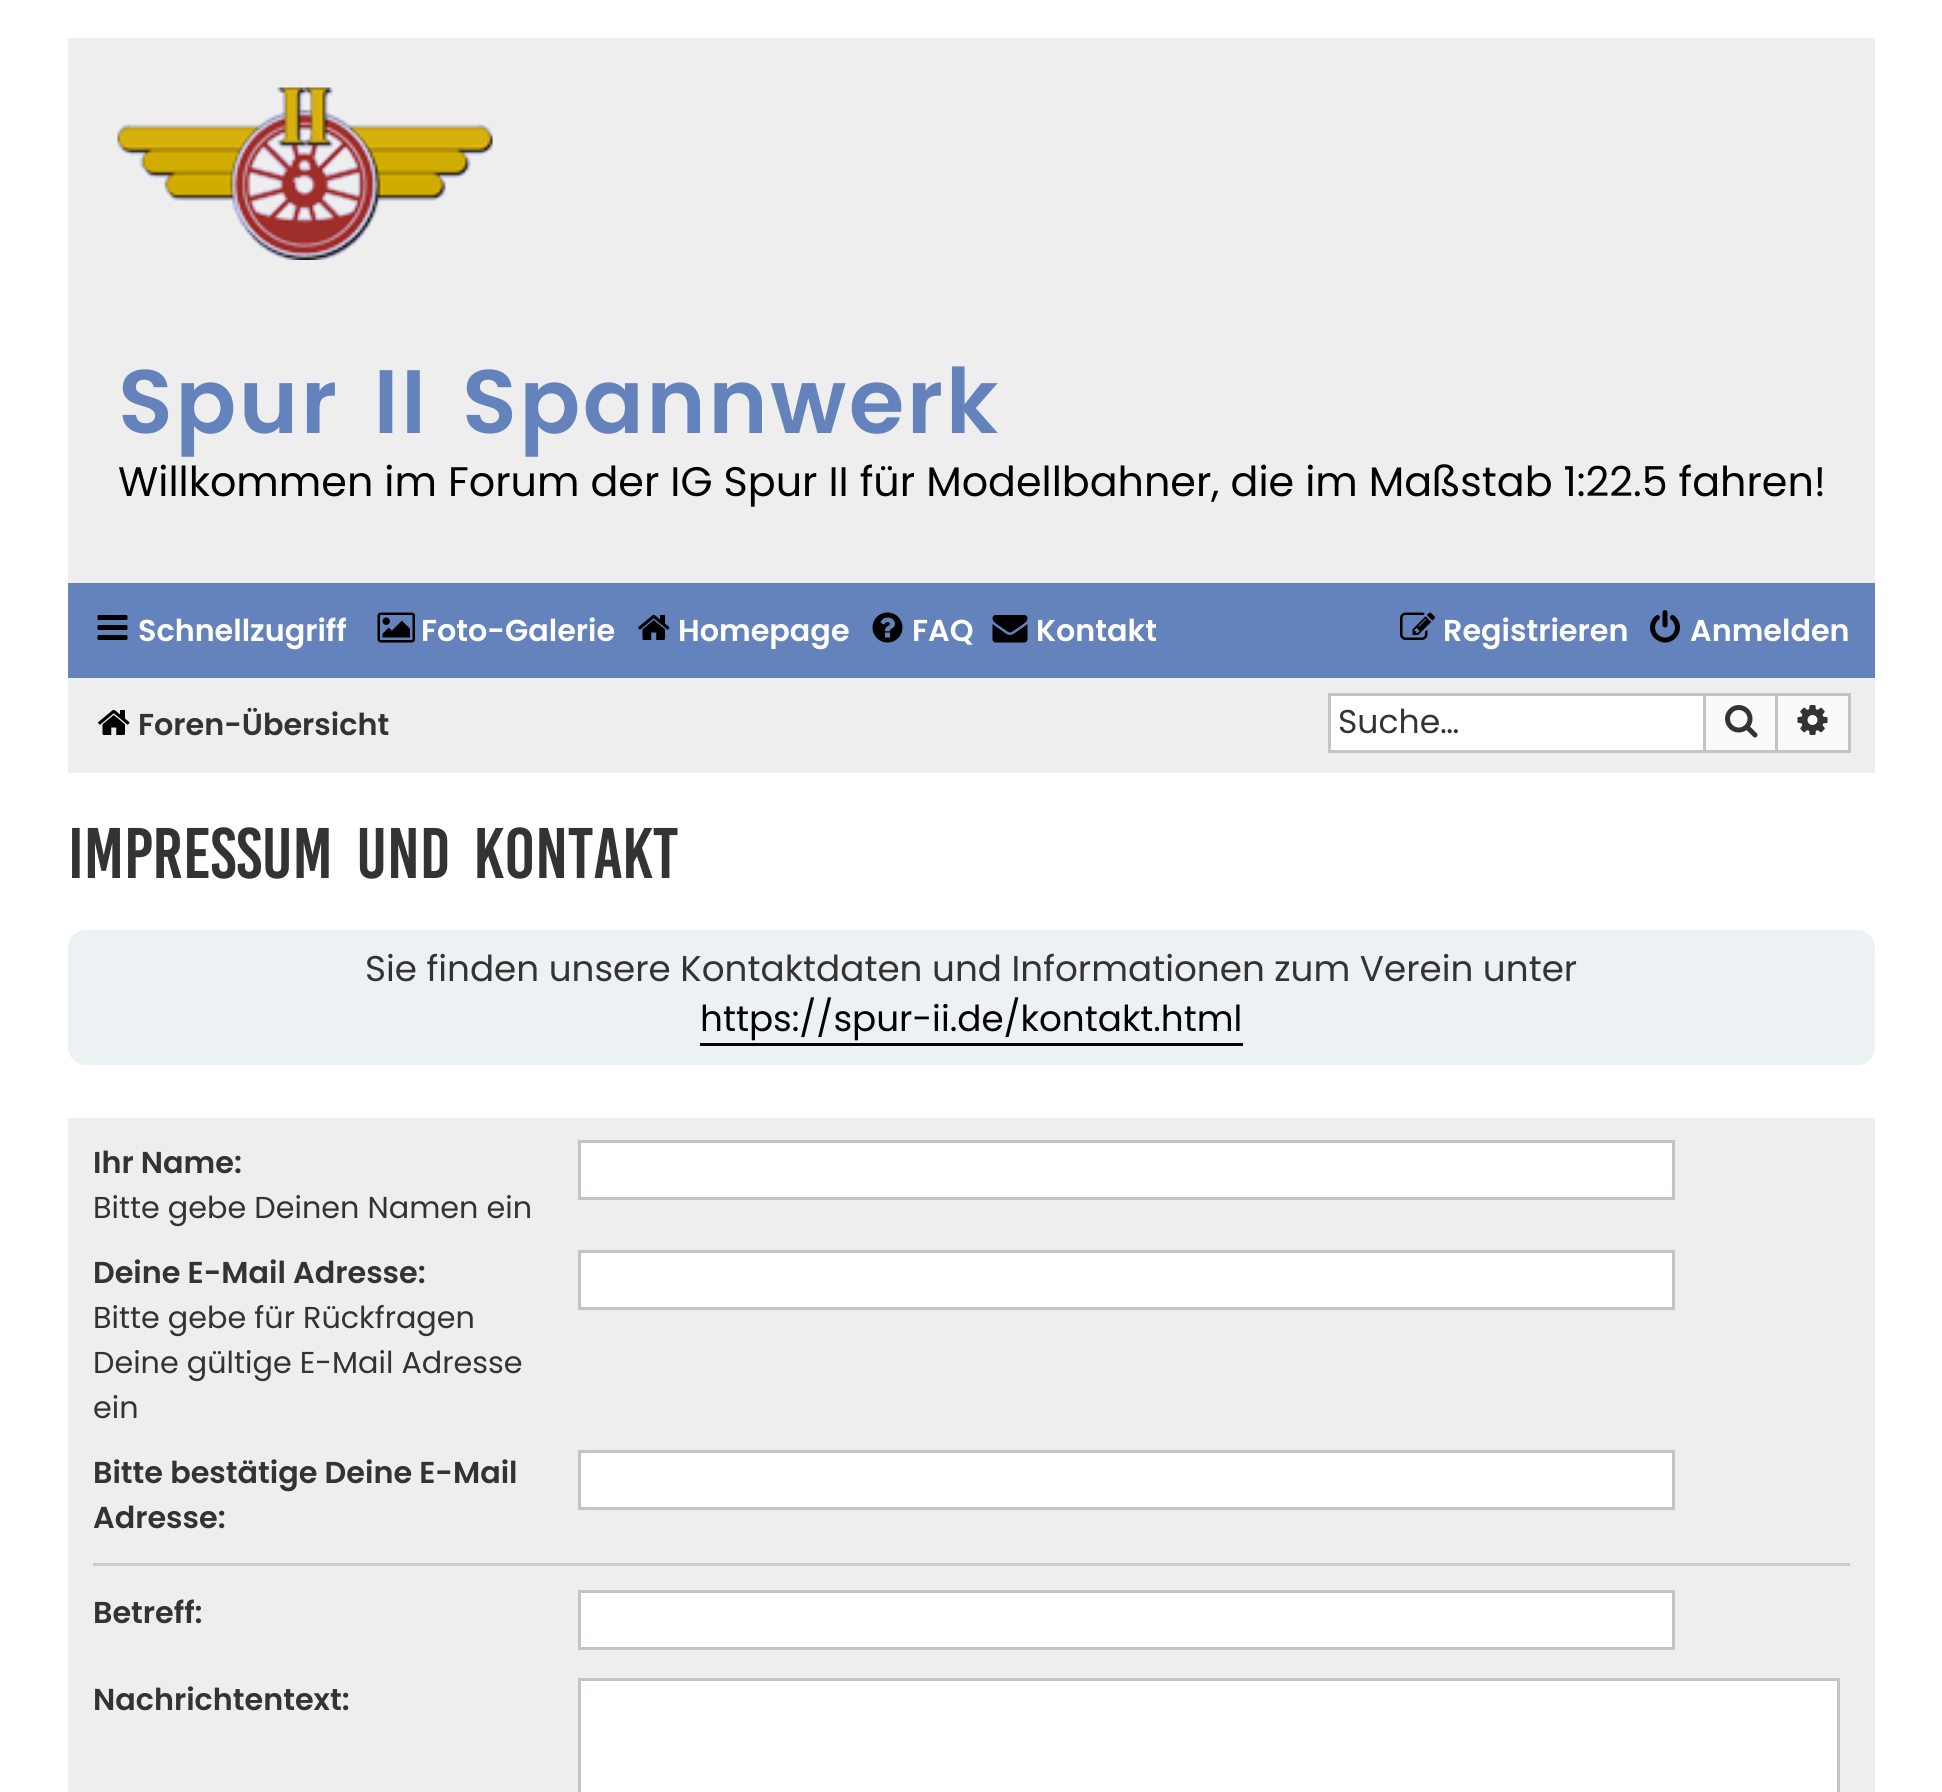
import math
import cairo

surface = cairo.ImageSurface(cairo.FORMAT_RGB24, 1942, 1792)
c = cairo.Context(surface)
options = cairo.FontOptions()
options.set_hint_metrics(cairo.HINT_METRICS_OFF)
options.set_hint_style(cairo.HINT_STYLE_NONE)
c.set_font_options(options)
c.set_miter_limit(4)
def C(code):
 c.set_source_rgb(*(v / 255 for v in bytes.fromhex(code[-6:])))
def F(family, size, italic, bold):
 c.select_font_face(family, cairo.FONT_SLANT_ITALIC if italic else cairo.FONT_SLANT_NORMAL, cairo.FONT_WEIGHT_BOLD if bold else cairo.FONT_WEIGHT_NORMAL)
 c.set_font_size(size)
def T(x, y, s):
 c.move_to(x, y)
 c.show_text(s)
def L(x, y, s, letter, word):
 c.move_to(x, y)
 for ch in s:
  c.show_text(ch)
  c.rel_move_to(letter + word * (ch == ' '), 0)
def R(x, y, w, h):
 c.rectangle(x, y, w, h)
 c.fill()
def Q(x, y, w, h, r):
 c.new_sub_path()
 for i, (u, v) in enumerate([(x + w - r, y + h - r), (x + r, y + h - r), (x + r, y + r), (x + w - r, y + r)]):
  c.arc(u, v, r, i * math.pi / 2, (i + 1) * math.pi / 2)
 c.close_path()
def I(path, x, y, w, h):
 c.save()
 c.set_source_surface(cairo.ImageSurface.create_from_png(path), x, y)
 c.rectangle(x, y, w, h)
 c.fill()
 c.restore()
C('ffffff')
c.paint()
C('eeeeee')
R(68,38,1807,545)
I('1.png',117,87,376,173)
F('Poppins SemiBold',90,0,0)
C('6482bc')
L(118,433,'Spur II',2.5,10)
L(462,433,'Spannwerk',2.5,0)
F('Poppins',41.25,0,0)
C('000000')
T(118,496,'Willkommen im Forum der IG Spur II für Modellbahner, die im Maßstab 1:22.5 fahren!')
C('6482bc')
R(68,583,1807,95)
I('2.png',97,615,31,25)
F('Poppins SemiBold',30.25,0,0)
C('ffffff')
T(138,641,'Schnellzugriff')
I('3.png',377,612,38,31)
T(421,641,'Foto-Galerie')
I('4.png',638,614,32,26)
T(678,641,'Homepage')
I('5.png',872,612,31,31)
T(912,641,'FAQ')
I('6.png',992,615,36,28)
T(1036,641,'Kontakt')
I('7.png',1400,612,35,28)
T(1443,641,'Registrieren')
I('8.png',1650,610,30,33)
T(1690,641,'Anmelden')
C('eeeeee')
R(68,678,1807,95)
I('9.png',98,709,32,26)
C('333333')
T(138,735,'Foren-Übersicht')
C('ffffff')
R(1331,696,372,54)
C('c7c3bf')
R(1328,693,375,3)
R(1328,750,375,3)
R(1328,693,3,60)
F('Poppins',33,0,0)
C('333333')
T(1338,733,'Suche…')
C('fafafa')
c.rectangle(1704.5,694.5,72,57)
c.fill_preserve()
C('c7c3bf')
c.set_line_width(3)
c.stroke()
I('10.png',1725,705,33,33)
C('fafafa')
R(1778,696,70,54)
C('c7c3bf')
R(1778,693,72,3)
R(1848,693,3,60)
R(1778,750,72,3)
I('11.png',1797,705,31,30)
F('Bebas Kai',55,0,0)
C('333333')
L(68,878,'Impressum und Kontakt',0,10)
C('ecf1f3')
Q(68,930,1807,135,18)
c.fill()
F('Poppins',35.75,0,0)
C('333333')
T(365,981,'Sie finden unsere Kontaktdaten und Informationen zum Verein unter')
C('000000')
R(700,1043,543,3)
T(700,1031,'https://spur-ii.de/kontakt.html')
C('eeeeee')
R(68,1118,1807,674)
F('Poppins SemiBold',30.25,0,0)
C('333333')
T(93,1173,'Ihr Name:')
F('Poppins',30.25,0,0)
T(93,1218,'Bitte gebe Deinen Namen ein')
C('ffffff')
c.rectangle(579.5,1141.5,1094,57)
c.fill_preserve()
C('c7c3bf')
c.stroke()
F('Poppins SemiBold',30.25,0,0)
C('333333')
T(93,1283,'Deine E-Mail Adresse:')
F('Poppins',30.25,0,0)
T(93,1328,'Bitte gebe für Rückfragen')
T(93,1373,'Deine gültige E-Mail Adresse')
T(93,1418,'ein')
C('ffffff')
c.rectangle(579.5,1251.5,1094,57)
c.fill_preserve()
C('c7c3bf')
c.stroke()
F('Poppins SemiBold',30.25,0,0)
C('333333')
T(93,1483,'Bitte bestätige Deine E-Mail')
T(93,1528,'Adresse:')
C('ffffff')
c.rectangle(579.5,1451.5,1094,57)
c.fill_preserve()
C('c7c3bf')
c.stroke()
C('cccccc')
R(93,1563,1757,3)
C('333333')
T(93,1623,'Betreff:')
C('ffffff')
c.rectangle(579.5,1591.5,1094,57)
c.fill_preserve()
C('c7c3bf')
c.stroke()
C('333333')
T(93,1710,'Nachrichtentext:')
C('ffffff')
c.rectangle(579.5,1679.5,1259,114)
c.fill_preserve()
C('c7c3bf')
c.stroke()
surface.write_to_png('o.png')
